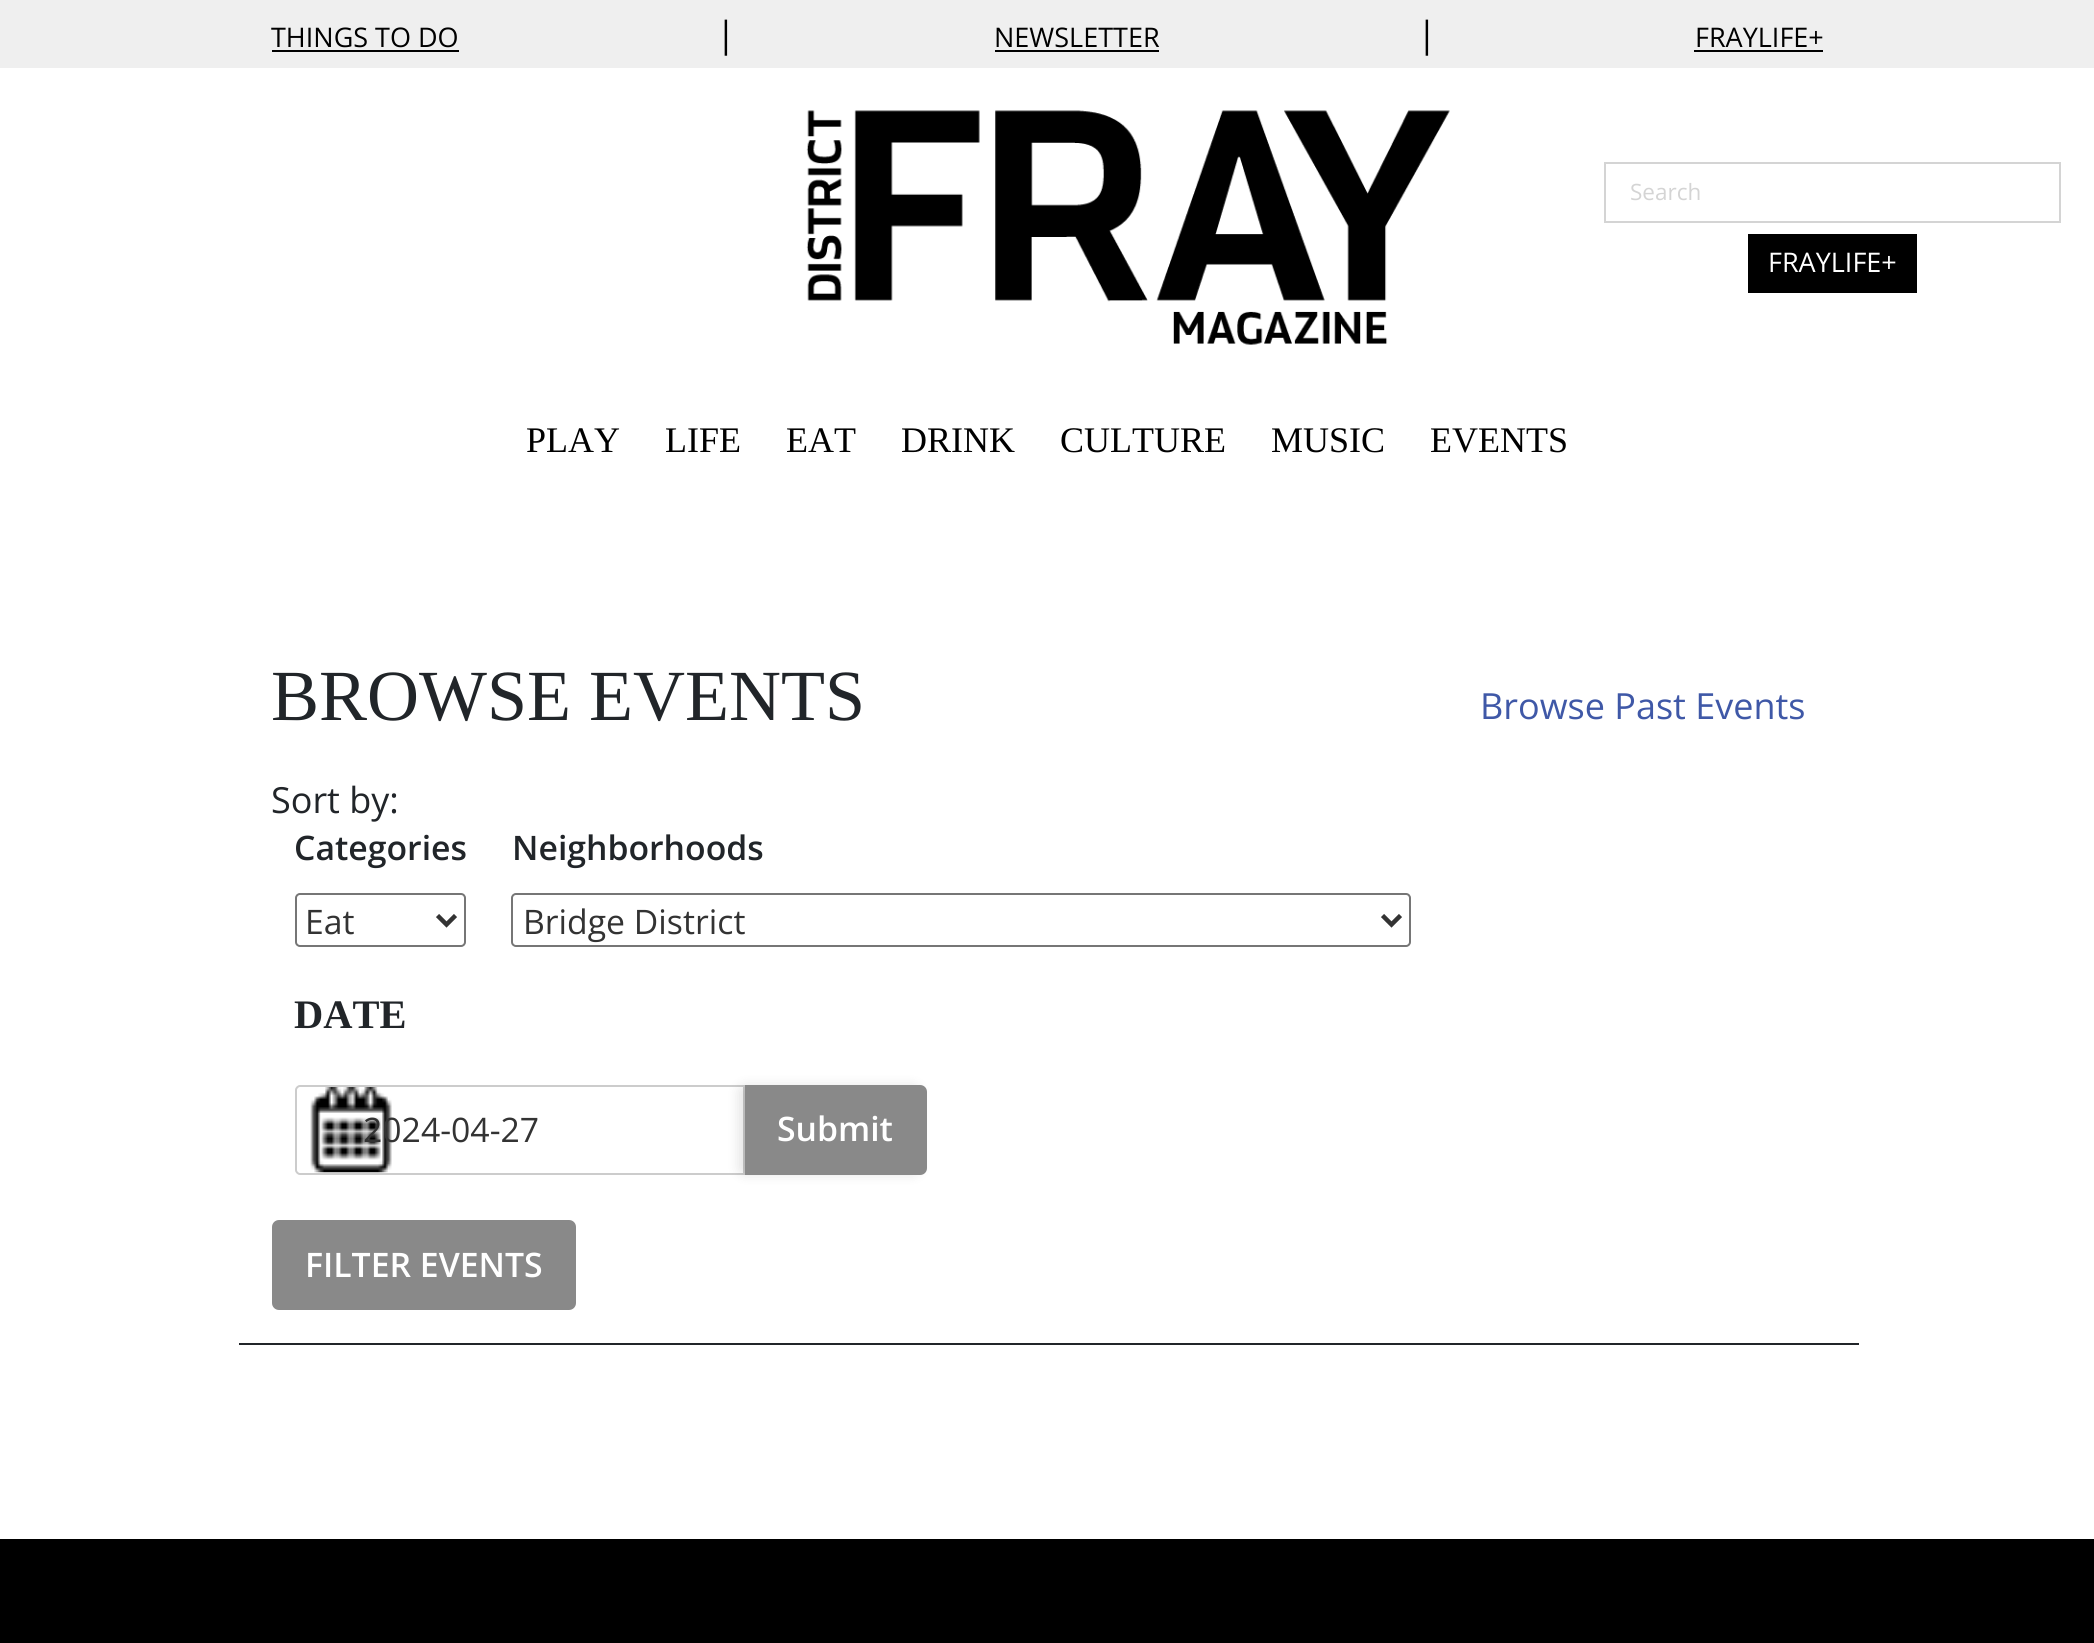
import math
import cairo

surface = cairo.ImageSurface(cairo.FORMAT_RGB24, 2094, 1643)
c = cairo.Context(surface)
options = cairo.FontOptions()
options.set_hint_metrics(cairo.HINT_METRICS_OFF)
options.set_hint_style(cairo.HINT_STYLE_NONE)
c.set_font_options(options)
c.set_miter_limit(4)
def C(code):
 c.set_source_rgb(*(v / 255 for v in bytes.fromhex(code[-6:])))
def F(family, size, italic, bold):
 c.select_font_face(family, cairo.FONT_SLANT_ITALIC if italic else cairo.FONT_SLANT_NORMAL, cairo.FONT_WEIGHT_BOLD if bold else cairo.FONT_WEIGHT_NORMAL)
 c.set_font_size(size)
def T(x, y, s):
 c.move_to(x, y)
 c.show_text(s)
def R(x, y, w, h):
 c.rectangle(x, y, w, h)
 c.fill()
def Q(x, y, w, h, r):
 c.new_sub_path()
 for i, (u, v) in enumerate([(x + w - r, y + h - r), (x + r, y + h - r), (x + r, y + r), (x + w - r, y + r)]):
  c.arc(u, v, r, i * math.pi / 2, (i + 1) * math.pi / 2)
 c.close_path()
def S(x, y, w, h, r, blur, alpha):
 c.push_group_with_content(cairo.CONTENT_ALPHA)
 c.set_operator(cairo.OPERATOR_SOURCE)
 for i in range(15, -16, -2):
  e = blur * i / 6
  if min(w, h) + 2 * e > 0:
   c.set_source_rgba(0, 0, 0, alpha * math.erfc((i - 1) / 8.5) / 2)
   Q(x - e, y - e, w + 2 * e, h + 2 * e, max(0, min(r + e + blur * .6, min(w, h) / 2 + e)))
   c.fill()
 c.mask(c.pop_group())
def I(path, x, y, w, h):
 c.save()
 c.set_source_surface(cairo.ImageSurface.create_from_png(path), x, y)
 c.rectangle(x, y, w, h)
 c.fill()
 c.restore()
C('ffffff')
c.paint()
C('efefef')
R(0,0,2094,68)
F('Open Sans',27,0,0)
C('000000')
T(271,47,'THINGS TO DO')
R(272,50,187,2)
F('Open Sans',36,0,0)
T(716,47,'|')
F('Open Sans',27,0,0)
T(994,47,'NEWSLETTER')
R(995,50,164,2)
F('Open Sans',36,0,0)
T(1417,47,'|')
F('Open Sans',27,0,0)
T(1695,47,'FRAYLIFE+')
R(1694,50,129,2)
I('1.png',806,110,644,235)
c.rectangle(1605,163,455,59)
C('d4d4d4')
c.stroke()
F('Open Sans',22.5,0,0)
T(1630,200,'Search')
C('000000')
R(1748,234,169,59)
F('Open Sans',27,0,0)
C('ffffff')
T(1768,272,'FRAYLIFE+')
F('Liberation Serif',36,0,0)
C('000000')
T(526,452,'PLAY')
T(665,452,'LIFE')
T(786,452,'EAT')
T(901,452,'DRINK')
T(1060,452,'CULTURE')
T(1271,452,'MUSIC')
T(1430,452,'EVENTS')
F('Liberation Serif',72,0,0)
C('212529')
T(271,720,'BROWSE EVENTS')
F('Open Sans',36,0,0)
C('3f58a7')
T(1480,719,'Browse Past Events')
C('212529')
R(239,1343,1620,2)
T(271,813,'Sort by:')
F('Open Sans SemiBold',33.75,0,0)
T(294,860,'Categories')
Q(296,894,169,52,4)
C('767676')
c.stroke()
c.new_path()
c.move_to(437.5,915.5)
c.line_to(446.5,924.5)
c.line_to(455.5,915.5)
C('333333')
c.set_line_width(4.5)
c.stroke()
F('Open Sans',33.75,0,0)
T(305,934,'Eat')
F('Open Sans SemiBold',33.75,0,0)
C('212529')
T(512,860,'Neighborhoods')
Q(512,894,898,52,4)
C('767676')
c.set_line_width(2)
c.stroke()
c.new_path()
c.move_to(1382.5,915.5)
c.line_to(1391.5,924.5)
c.line_to(1400.5,915.5)
C('333333')
c.set_line_width(4.5)
c.stroke()
F('Open Sans',33.75,0,0)
T(523,934,'Bridge District')
F('Liberation Serif',40.5,0,1)
C('212529')
T(294,1028,'DATE')
I('2.png',310,1087,82,86)
c.new_path()
c.move_to(300,1086)
c.line_to(744,1086)
c.line_to(744,1174)
c.line_to(300,1174)
c.curve_to(298,1174,296,1172,296,1170)
c.line_to(296,1090)
c.curve_to(296,1088,298,1086,300,1086)
c.close_path()
C('cccccc')
c.set_line_width(2)
c.stroke()
F('Open Sans',33.75,0,0)
C('333333')
T(363,1142,'2024-04-27')
C('000000')
S(738,1085,182,90,7,5.5,.1)
C('898989')
c.new_path()
c.move_to(745,1085)
c.line_to(920,1085)
c.curve_to(924,1085,927,1088,927,1092)
c.line_to(927,1168)
c.curve_to(927,1172,924,1175,920,1175)
c.line_to(745,1175)
c.close_path()
c.fill()
F('Open Sans SemiBold',33.75,0,0)
C('ffffff')
T(777,1141,'Submit')
C('898989')
Q(272,1220,304,90,7)
c.fill()
C('ffffff')
T(305,1277,'FILTER EVENTS')
C('000000')
R(0,1539,2094,104)
surface.write_to_png('o.png')
